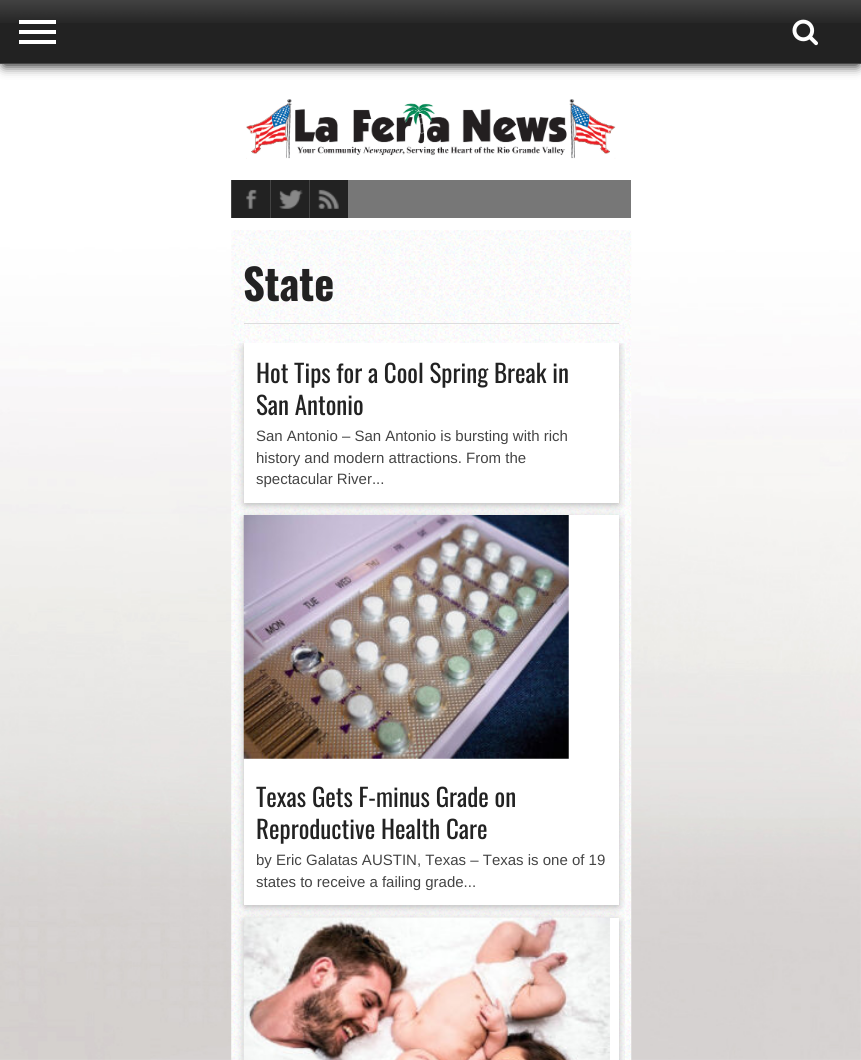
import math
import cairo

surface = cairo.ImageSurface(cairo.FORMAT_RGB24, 861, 1060)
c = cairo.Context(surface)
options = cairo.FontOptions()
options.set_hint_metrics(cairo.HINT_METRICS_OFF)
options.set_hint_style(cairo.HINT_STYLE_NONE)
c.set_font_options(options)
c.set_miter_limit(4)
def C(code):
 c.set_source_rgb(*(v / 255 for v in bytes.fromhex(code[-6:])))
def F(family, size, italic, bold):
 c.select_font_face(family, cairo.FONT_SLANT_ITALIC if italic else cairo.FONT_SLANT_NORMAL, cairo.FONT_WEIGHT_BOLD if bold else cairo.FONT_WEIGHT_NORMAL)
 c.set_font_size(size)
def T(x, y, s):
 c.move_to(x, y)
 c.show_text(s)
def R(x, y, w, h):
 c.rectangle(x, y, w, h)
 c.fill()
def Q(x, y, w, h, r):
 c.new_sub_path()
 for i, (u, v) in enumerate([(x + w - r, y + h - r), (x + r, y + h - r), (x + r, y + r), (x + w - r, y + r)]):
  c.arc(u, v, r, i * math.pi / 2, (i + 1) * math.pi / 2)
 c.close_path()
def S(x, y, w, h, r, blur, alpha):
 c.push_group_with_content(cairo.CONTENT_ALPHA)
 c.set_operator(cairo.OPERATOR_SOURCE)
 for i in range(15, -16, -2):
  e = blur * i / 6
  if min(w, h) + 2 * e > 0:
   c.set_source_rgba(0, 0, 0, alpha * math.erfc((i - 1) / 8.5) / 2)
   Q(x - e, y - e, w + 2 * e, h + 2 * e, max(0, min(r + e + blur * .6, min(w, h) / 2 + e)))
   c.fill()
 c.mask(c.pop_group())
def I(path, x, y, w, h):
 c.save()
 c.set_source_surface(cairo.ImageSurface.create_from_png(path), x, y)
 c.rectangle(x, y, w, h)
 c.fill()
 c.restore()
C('ffffff')
c.paint()
I('1.png',0,64,861,996)
C('000000')
S(4,9,854,56,0,6,1)
C('222222')
R(0,0,861,63)
I('2.png',0,0,861,23)
C('444444')
R(0,63,861,1)
C('ffffff')
R(19,20,37,4)
R(19,30,37,4)
R(19,40,37,4)
I('3.png',792,19,26,27)
I('4.png',246,99,370,60)
C('777777')
R(348,180,283,38)
C('222222')
R(232,180,116,38)
C('444444')
R(231,180,1,38)
I('5.png',246,189,11,20)
R(270,180,1,38)
I('6.png',279,189,24,20)
R(309,180,1,38)
I('7.png',318,189,21,20)
I('8.png',231,230,401,830)
C('dddddd')
R(244,323,375,1)
F('Oswald',42.5,0,1)
C('222222')
T(243,301,'State')
c.save()
c.rectangle(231,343,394,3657)
c.clip()
C('aaaaaa')
S(245,346,373,158,0,4.5,1)
c.restore()
C('ffffff')
R(244,343,375,160)
F('Oswald',25,0,0)
C('222222')
T(256,383,'Hot Tips for a Cool Spring Break in')
T(256,415,'San Antonio')
F('Liberation Sans',15,0,0)
C('444444')
T(256,441,'San Antonio – San Antonio is bursting with rich')
T(256,463,'history and modern attractions. From the')
T(256,484,'spectacular River...')
c.save()
c.rectangle(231,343,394,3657)
c.clip()
C('aaaaaa')
S(245,519,373,387,0,4.5,1)
c.restore()
C('ffffff')
R(244,515,375,390)
I('9.png',243,515,326,244)
F('Oswald',25,0,0)
C('222222')
T(256,807,'Texas Gets F-minus Grade on')
T(256,839,'Reproductive Health Care')
F('Liberation Sans',15,0,0)
C('444444')
T(256,865,'by Eric Galatas AUSTIN, Texas – Texas is one of 19')
T(256,887,'states to receive a failing grade...')
c.save()
c.rectangle(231,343,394,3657)
c.clip()
C('aaaaaa')
S(245,921,373,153,0,4.5,1)
c.restore()
C('ffffff')
R(610,918,9,142)
I('10.png',243,917,367,143)
surface.write_to_png('o.png')
